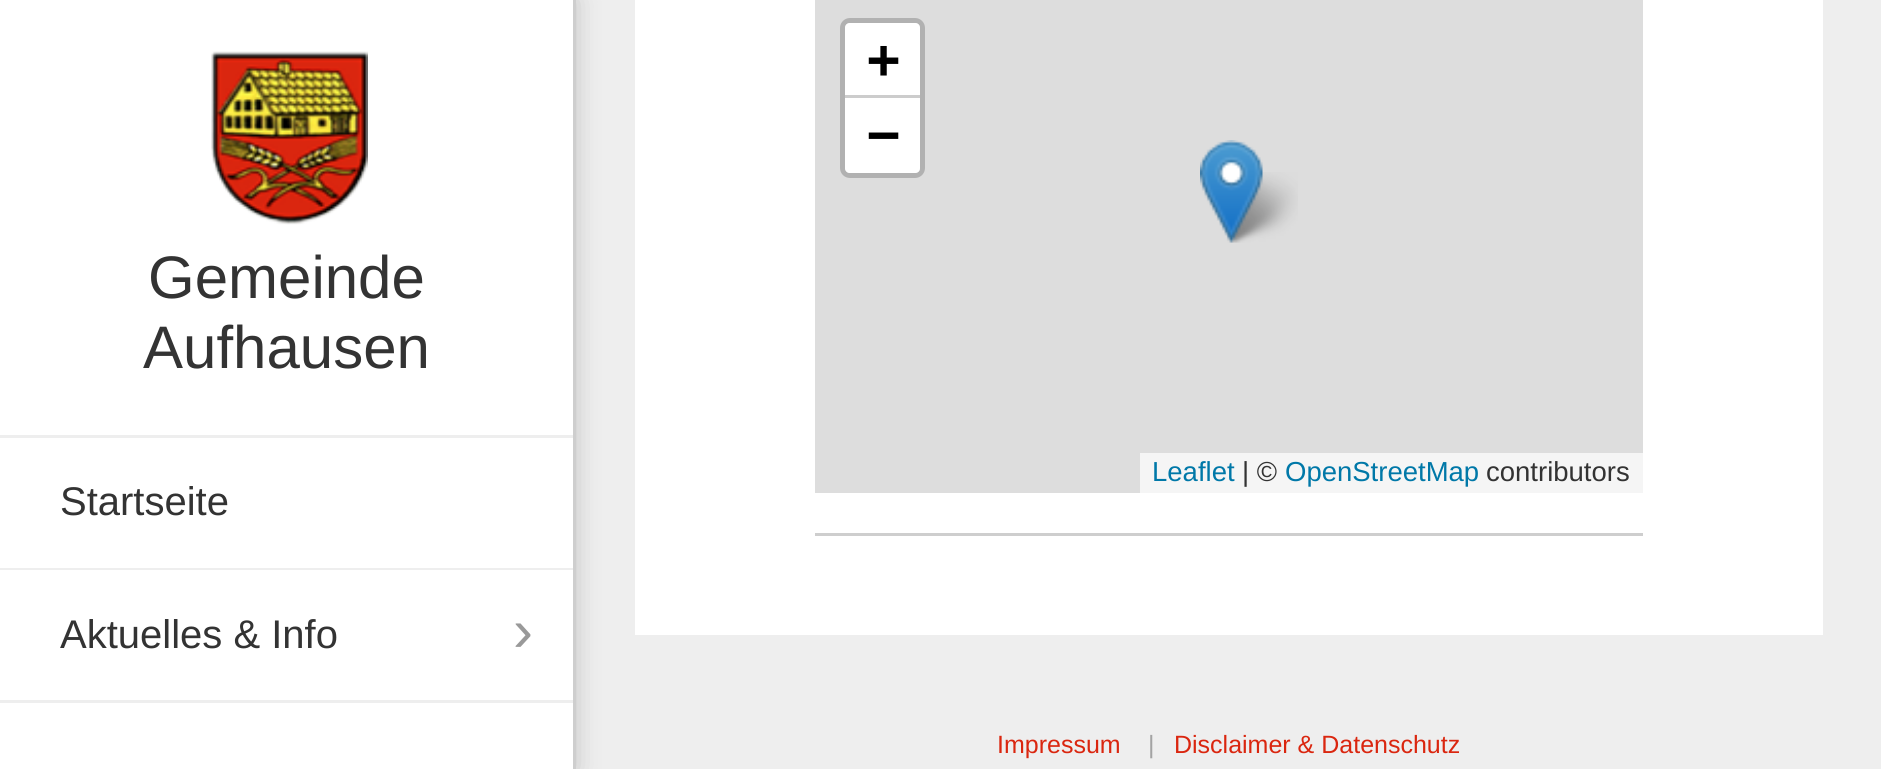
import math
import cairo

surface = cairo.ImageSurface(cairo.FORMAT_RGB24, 1881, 769)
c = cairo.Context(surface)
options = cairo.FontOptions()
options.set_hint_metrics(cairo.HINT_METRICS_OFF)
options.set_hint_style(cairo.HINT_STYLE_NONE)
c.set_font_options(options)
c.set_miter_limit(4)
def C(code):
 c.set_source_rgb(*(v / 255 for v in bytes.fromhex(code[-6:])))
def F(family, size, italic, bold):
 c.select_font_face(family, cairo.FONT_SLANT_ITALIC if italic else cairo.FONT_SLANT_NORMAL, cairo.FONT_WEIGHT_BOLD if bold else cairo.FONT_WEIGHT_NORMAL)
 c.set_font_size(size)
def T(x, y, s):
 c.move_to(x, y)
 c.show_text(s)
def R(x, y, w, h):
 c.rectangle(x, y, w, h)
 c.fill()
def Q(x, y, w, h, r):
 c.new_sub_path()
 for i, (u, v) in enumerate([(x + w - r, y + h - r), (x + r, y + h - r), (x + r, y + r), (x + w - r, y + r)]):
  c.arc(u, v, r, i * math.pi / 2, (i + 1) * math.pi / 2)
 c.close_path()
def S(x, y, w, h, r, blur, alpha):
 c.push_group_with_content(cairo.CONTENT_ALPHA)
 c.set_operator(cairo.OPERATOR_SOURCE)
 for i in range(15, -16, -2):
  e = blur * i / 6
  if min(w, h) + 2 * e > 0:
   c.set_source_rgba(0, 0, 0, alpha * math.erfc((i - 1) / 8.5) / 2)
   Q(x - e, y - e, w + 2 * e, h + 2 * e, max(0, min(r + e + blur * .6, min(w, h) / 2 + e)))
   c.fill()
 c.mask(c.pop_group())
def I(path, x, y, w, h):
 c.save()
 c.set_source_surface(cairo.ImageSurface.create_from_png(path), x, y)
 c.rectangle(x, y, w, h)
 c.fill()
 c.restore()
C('eeeeee')
c.paint()
C('000000')
S(0,0,575,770,0,12.5,.2)
C('cecece')
R(573,0,3,769)
C('ffffff')
R(0,0,573,435)
C('eeeeee')
R(0,435,573,3)
I('1.png',211,51,157,174)
F('Liberation Sans',60,0,0)
C('333333')
T(148,298,'Gemeinde')
T(143,368,'Aufhausen')
C('ffffff')
R(0,438,573,331)
C('eeeeee')
R(0,568,573,2)
F('Liberation Sans',40,0,0)
C('333333')
T(60,515,'Startseite')
C('eeeeee')
R(0,700,573,3)
C('333333')
T(60,648,'Aktuelles & Info')
F('Liberation Sans',60,0,0)
C('999999')
T(513,651,'›')
C('ffffff')
R(635,0,1188,635)
C('dddddd')
R(815,0,828,493)
Q(842.5,20.5,80,155,7.5)
C('b1b1b1')
c.set_line_width(5)
c.stroke()
C('ffffff')
c.new_path()
c.move_to(850,23)
c.line_to(915,23)
c.curve_to(918,23,920,25,920,28)
c.line_to(920,98)
c.line_to(845,98)
c.line_to(845,28)
c.curve_to(845,25,847,23,850,23)
c.close_path()
c.fill()
C('cccccc')
R(845,95,75,3)
F('DejaVu Sans Mono',55,0,1)
C('000000')
T(867,78,'+')
C('ffffff')
c.new_path()
c.move_to(845,98)
c.line_to(920,98)
c.line_to(920,168)
c.curve_to(920,171,918,173,915,173)
c.line_to(850,173)
c.curve_to(847,173,845,171,845,168)
c.close_path()
c.fill()
C('000000')
T(867,153,'−')
C('f5f5f5')
R(1140,453,503,40)
F('Liberation Sans',27.5,0,0)
C('0078a8')
T(1152,481,'Leaflet')
C('333333')
T(1242,481,'| ©')
C('0078a8')
T(1285,481,'OpenStreetMap')
C('333333')
T(1486,481,'contributors')
I('3.png',1222,172,76,71)
I('2.png',1200,140,63,103)
C('cecece')
R(815,533,828,3)
F('Liberation Sans',25,0,0)
C('da260f')
T(997,753,'Impressum')
C('a3a3a3')
T(1148,753,'|')
C('da260f')
T(1174,753,'Disclaimer & Datenschutz')
surface.write_to_png('o.png')
